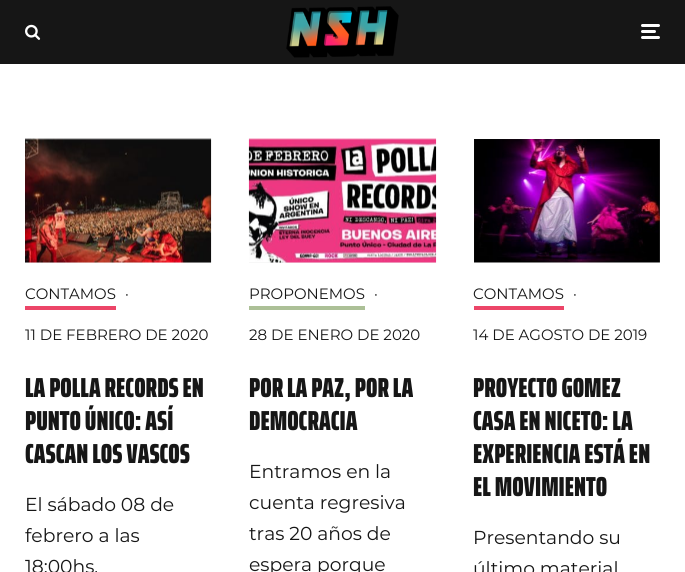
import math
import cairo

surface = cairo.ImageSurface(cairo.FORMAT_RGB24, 685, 572)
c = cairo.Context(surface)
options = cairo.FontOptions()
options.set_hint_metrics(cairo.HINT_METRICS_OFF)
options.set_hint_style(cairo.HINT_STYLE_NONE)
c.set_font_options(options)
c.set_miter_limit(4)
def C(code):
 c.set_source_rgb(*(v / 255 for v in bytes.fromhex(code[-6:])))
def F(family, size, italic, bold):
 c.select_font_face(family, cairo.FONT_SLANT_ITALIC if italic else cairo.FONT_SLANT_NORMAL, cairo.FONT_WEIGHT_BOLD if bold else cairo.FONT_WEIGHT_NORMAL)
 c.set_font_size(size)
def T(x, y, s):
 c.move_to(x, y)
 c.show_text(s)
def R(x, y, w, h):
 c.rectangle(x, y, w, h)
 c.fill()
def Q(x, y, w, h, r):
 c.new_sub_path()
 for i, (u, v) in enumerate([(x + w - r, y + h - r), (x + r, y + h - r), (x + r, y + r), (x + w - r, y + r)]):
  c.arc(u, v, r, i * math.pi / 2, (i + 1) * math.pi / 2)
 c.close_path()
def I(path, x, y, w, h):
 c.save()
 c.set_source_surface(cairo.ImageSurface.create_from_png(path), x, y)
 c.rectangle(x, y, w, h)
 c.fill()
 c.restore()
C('ffffff')
c.paint()
C('161616')
R(0,0,685,64)
I('1.png',25,24,16,16)
I('2.png',286,6,113,52)
C('ffffff')
Q(641,30,15,3,1.5)
c.fill()
Q(641,24,19,3,1.5)
c.fill()
Q(641,36,19,3,1.5)
c.fill()
C('eeeeee')
R(25,139,186,124)
I('3.png',25,138,187,125)
C('ec4568')
R(25,306,91,4)
F('Montserrat',15,0,0)
C('161616')
T(25,299,'CONTAMOS')
T(125,299,'·')
T(25,340,'11 DE FEBRERO DE 2020')
F('Saira ExtraCondensed Black',27.5,0,0)
T(25,397,'LA POLLA RECORDS EN')
T(25,430,'PUNTO ÚNICO: ASÍ')
T(25,463,'CASCAN LOS VASCOS')
F('Montserrat',18.75,0,0)
T(25,511,'El sábado 08 de')
T(25,542,'febrero a las')
T(25,573,'18:00hs.')
C('eeeeee')
R(249,139,187,124)
I('4.png',248,138,189,125)
C('acc097')
R(249,306,116,4)
F('Montserrat',15,0,0)
C('161616')
T(249,299,'PROPONEMOS')
T(374,299,'·')
T(249,340,'28 DE ENERO DE 2020')
F('Saira ExtraCondensed Black',27.5,0,0)
T(249,397,'POR LA PAZ, POR LA')
T(249,430,'DEMOCRACIA')
F('Montserrat',18.75,0,0)
T(249,478,'Entramos en la')
T(249,509,'cuenta regresiva')
T(249,540,'tras 20 años de')
T(249,571,'espera porque')
C('eeeeee')
R(474,139,186,124)
I('5.png',474,139,186,124)
C('ec4568')
R(474,306,90,4)
F('Montserrat',15,0,0)
C('161616')
T(473,299,'CONTAMOS')
T(573,299,'·')
T(473,340,'14 DE AGOSTO DE 2019')
F('Saira ExtraCondensed Black',27.5,0,0)
T(473,397,'PROYECTO GOMEZ')
T(473,430,'CASA EN NICETO: LA')
T(473,463,'EXPERIENCIA ESTÁ EN')
T(473,496,'EL MOVIMIENTO')
F('Montserrat',18.75,0,0)
T(473,544,'Presentando su')
T(473,575,'último material')
surface.write_to_png('o.png')
